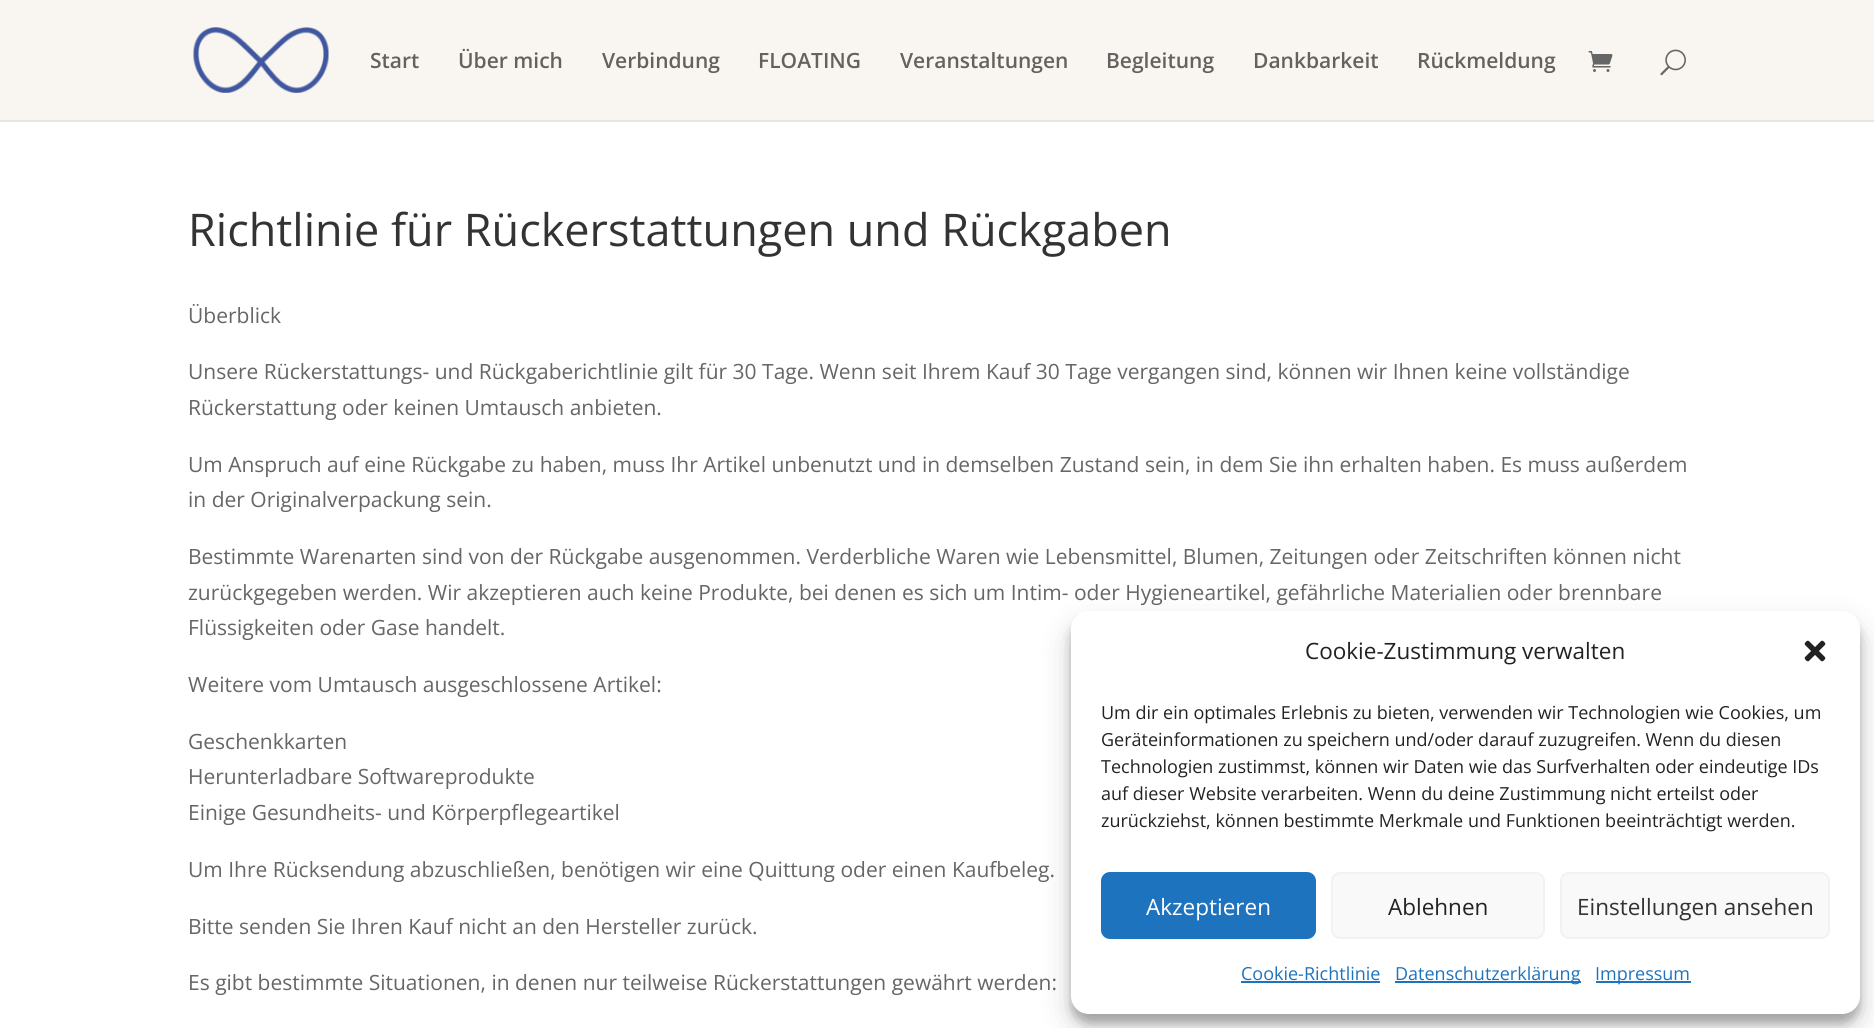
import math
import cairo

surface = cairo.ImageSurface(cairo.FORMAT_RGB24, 1874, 1028)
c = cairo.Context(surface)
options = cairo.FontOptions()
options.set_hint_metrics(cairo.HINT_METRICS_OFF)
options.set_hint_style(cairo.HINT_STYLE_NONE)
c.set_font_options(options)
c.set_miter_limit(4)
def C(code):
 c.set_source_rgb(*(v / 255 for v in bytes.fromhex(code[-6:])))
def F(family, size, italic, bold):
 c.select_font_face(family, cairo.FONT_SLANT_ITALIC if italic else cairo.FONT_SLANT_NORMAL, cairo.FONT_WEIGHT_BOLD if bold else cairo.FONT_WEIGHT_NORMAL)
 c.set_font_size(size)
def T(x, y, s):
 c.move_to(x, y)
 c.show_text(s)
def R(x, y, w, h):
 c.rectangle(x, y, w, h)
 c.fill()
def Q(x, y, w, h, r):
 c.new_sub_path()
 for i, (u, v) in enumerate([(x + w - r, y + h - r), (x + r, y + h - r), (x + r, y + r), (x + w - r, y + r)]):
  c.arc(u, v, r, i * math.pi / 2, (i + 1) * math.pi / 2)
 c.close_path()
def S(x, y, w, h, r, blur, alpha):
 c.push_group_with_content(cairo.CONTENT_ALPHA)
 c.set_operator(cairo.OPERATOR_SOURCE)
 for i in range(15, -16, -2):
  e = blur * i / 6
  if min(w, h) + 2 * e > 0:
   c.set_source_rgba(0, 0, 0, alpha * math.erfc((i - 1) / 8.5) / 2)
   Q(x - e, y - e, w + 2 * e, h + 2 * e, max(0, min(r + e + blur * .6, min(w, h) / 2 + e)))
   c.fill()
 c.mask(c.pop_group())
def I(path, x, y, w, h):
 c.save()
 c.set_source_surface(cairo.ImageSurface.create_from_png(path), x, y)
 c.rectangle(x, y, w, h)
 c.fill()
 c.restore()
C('ffffff')
c.paint()
C('e6e6e6')
R(0,120,1874,2)
C('f9f6f1')
R(0,0,1874,120)
I('1.png',193,27,136,66)
F('Open Sans SemiBold',21,0,0)
C('646260')
T(370,68,'Start')
T(458,68,'Über mich')
T(602,68,'Verbindung')
T(758,68,'FLOATING')
T(900,68,'Veranstaltungen')
T(1106,68,'Begleitung')
T(1253,68,'Dankbarkeit')
T(1417,68,'Rückmeldung')
I('2.png',1588,51,25,21)
I('3.png',1660,49,26,27)
F('Open Sans',45,0,0)
C('333333')
T(188,246,'Richtlinie für Rückerstattungen und Rückgaben')
F('Open Sans',21,0,0)
C('666666')
T(188,323,'Überblick')
T(188,379,'Unsere Rückerstattungs- und Rückgaberichtlinie gilt für 30 Tage. Wenn seit Ihrem Kauf 30 Tage vergangen sind, können wir Ihnen keine vollständige')
T(188,415,'Rückerstattung oder keinen Umtausch anbieten.')
T(188,472,'Um Anspruch auf eine Rückgabe zu haben, muss Ihr Artikel unbenutzt und in demselben Zustand sein, in dem Sie ihn erhalten haben. Es muss außerdem')
T(188,507,'in der Originalverpackung sein.')
T(188,564,'Bestimmte Warenarten sind von der Rückgabe ausgenommen. Verderbliche Waren wie Lebensmittel, Blumen, Zeitungen oder Zeitschriften können nicht')
T(188,600,'zurückgegeben werden. Wir akzeptieren auch keine Produkte, bei denen es sich um Intim- oder Hygieneartikel, gefährliche Materialien oder brennbare')
T(188,635,'Flüssigkeiten oder Gase handelt.')
T(188,692,'Weitere vom Umtausch ausgeschlossene Artikel:')
T(188,749,'Geschenkkarten')
T(188,784,'Herunterladbare Softwareprodukte')
T(188,820,'Einige Gesundheits- und Körperpflegeartikel')
T(188,877,'Um Ihre Rücksendung abzuschließen, benötigen wir eine Quittung oder einen Kaufbeleg.')
T(188,934,'Bitte senden Sie Ihren Kauf nicht an den Hersteller zurück.')
T(188,990,'Es gibt bestimmte Situationen, in denen nur teilweise Rückerstattungen gewährt werden:')
C('000000')
S(1071,620,789,403,18,4.5,.23)
S(1071,626,789,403,18,15,.19)
C('ffffff')
Q(1071,611,789,403,18)
c.fill()
F('Open Sans',22.5,0,0)
C('222222')
T(1305,659,'Cookie-Zustimmung verwalten')
I('4.png',1804,640,22,22)
F('Open Sans',18,0,0)
T(1101,719,'Um dir ein optimales Erlebnis zu bieten, verwenden wir Technologien wie Cookies, um')
T(1101,746,'Geräteinformationen zu speichern und/oder darauf zuzugreifen. Wenn du diesen')
T(1101,773,'Technologien zustimmst, können wir Daten wie das Surfverhalten oder eindeutige IDs')
T(1101,800,'auf dieser Website verarbeiten. Wenn du deine Zustimmung nicht erteilst oder')
T(1101,827,'zurückziehst, können bestimmte Merkmale und Funktionen beeinträchtigt werden.')
C('1e73be')
Q(1102,873,213,65,8)
c.fill_preserve()
c.stroke()
F('Open Sans',22.5,0,0)
C('ffffff')
T(1146,915,'Akzeptieren')
C('f9f9f9')
Q(1332,873,212,65,8)
c.fill_preserve()
C('f2f2f2')
c.stroke()
C('222222')
T(1388,915,'Ablehnen')
C('f9f9f9')
Q(1561,873,268,65,8)
c.fill_preserve()
C('f2f2f2')
c.stroke()
C('333333')
T(1577,915,'Einstellungen ansehen')
F('Open Sans',18,0,0)
C('1e73be')
T(1241,980,'Cookie-Richtlinie')
R(1241,981,139,2)
R(1395,981,186,2)
T(1395,980,'Datenschutzerklärung')
R(1596,981,95,2)
T(1595,980,'Impressum')
surface.write_to_png('o.png')
